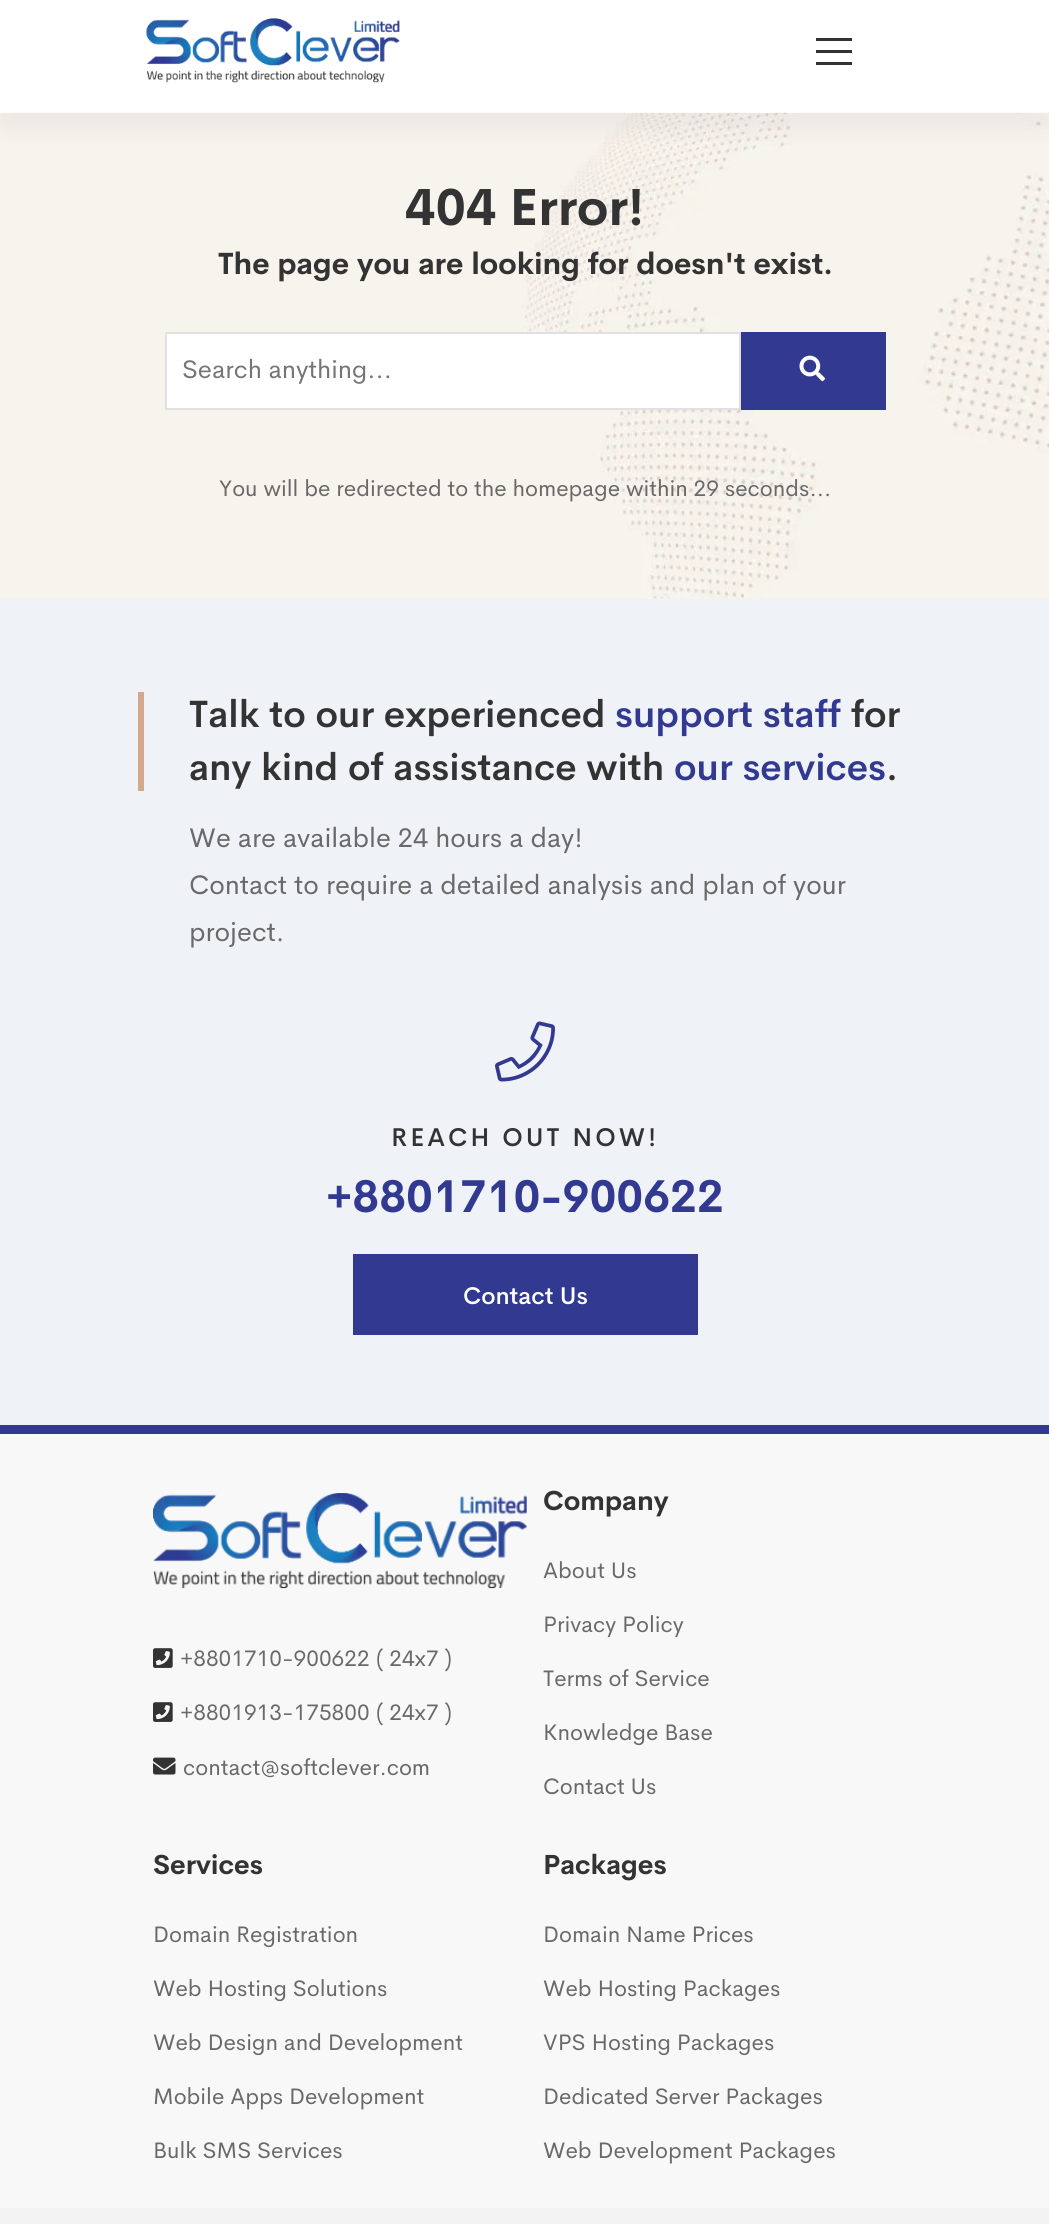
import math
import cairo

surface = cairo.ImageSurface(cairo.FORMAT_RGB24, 1049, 2224)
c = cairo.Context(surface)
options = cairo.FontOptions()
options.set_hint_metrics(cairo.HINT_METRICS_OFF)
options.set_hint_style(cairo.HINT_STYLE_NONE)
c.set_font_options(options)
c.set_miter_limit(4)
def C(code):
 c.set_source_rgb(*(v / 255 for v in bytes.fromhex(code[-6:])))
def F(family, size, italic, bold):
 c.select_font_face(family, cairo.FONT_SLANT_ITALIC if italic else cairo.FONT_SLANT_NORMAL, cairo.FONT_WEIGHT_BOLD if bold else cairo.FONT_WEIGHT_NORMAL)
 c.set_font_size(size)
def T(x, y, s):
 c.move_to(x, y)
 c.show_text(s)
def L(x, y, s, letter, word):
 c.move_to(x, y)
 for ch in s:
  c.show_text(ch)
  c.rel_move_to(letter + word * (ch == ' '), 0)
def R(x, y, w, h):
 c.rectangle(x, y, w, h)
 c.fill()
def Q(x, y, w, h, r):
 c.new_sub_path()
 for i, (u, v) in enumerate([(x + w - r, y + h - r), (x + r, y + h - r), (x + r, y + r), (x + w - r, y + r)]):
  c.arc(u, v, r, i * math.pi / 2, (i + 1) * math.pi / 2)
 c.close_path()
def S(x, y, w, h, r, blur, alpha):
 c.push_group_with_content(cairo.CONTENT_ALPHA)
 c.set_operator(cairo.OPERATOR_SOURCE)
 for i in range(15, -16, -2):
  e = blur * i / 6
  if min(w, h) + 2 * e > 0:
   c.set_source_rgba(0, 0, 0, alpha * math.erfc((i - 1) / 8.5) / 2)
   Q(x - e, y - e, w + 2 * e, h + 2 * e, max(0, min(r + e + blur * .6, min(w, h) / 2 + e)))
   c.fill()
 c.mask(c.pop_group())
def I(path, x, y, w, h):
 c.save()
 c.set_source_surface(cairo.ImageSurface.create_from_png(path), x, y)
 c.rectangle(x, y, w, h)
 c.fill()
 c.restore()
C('ffffff')
c.paint()
C('f6f2ed')
R(0,598,1049,1)
I('2.png',0,112,1049,487)
c.save()
c.set_fill_rule(cairo.FILL_RULE_EVEN_ODD)
c.new_path()
c.move_to(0,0)
c.line_to(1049,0)
c.line_to(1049,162)
c.line_to(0,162)
c.close_path()
c.move_to(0,-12)
c.line_to(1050,-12)
c.line_to(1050,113)
c.line_to(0,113)
c.close_path()
c.clip()
C('000000')
S(0,3,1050,125,0,11,.05)
c.restore()
I('1.png',146,18,254,65)
C('333333')
R(816,50,36,3)
R(816,38,36,3)
R(816,62,36,3)
F('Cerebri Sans',51,0,1)
T(405,225,'404 Error!')
F('Cerebri Sans',30,0,1)
T(218,274,'The page you are looking for doesn\'t exist.')
C('ffffff')
c.rectangle(166,333,574,76)
c.fill_preserve()
C('e1e1e1')
c.stroke()
F('Cerebri Sans',25.5,0,0)
C('757575')
T(182,378,'Search anything...')
C('323991')
R(741,332,145,78)
I('3.png',799,355,26,27)
F('Cerebri Sans',22.5,0,0)
C('696969')
T(219,496,'You will be redirected to the homepage within 29 seconds...')
C('eff2f6')
R(0,599,1049,826)
C('d2a98e')
R(138,692,6,99)
F('Cerebri Sans SemiBold',37.5,0,0)
C('333333')
T(189,727,'Talk to our experienced')
C('323991')
T(615,727,'support staff')
C('333333')
T(851,727,'for')
T(189,780,'any kind of assistance with')
C('323991')
T(674,780,'our services')
C('333333')
T(886,780,'.')
F('Cerebri Sans',27,0,0)
C('696969')
T(189,847,'We are available 24 hours a day!')
T(189,894,'Contact to require a detailed analysis and plan of your')
T(189,941,'project.')
I('4.png',495,1021,60,61)
F('Cerebri Sans Medium',25.5,0,0)
C('333333')
L(391,1146,'REACH OUT NOW!',3,0)
F('Cerebri Sans',45,0,1)
C('323991')
T(326,1212,'+8801710-900622')
R(353,1254,345,81)
F('Cerebri Sans Medium',24,0,0)
C('ffffff')
T(463,1304,'Contact Us')
C('f8f8f8')
R(0,1434,1049,774)
C('323991')
R(0,1425,1049,9)
I('5.png',153,1493,374,96)
I('6.png',153,1648,20,20)
F('Cerebri Sans',22.5,0,0)
C('696969')
T(180,1666,'+8801710-900622')
T(376,1666,'( 24x7 )')
I('6.png',153,1702,20,20)
T(180,1720,'+8801913-175800')
T(376,1720,'( 24x7 )')
I('7.png',153,1757,23,18)
T(183,1775,'contact@softclever.com')
F('Cerebri Sans',27,0,1)
C('333333')
T(543,1510,'Company')
F('Cerebri Sans',22.5,0,0)
C('696969')
T(543,1578,'About Us')
T(543,1632,'Privacy Policy')
T(543,1686,'Terms of Service')
T(543,1740,'Knowledge Base')
T(543,1794,'Contact Us')
F('Cerebri Sans',27,0,1)
C('333333')
T(153,1874,'Services')
F('Cerebri Sans',22.5,0,0)
C('696969')
T(153,1942,'Domain Registration')
T(153,1996,'Web Hosting Solutions')
T(153,2050,'Web Design and Development')
T(153,2104,'Mobile Apps Development')
T(153,2158,'Bulk SMS Services')
F('Cerebri Sans',27,0,1)
C('333333')
T(543,1874,'Packages')
F('Cerebri Sans',22.5,0,0)
C('696969')
T(543,1942,'Domain Name Prices')
T(543,1996,'Web Hosting Packages')
T(543,2050,'VPS Hosting Packages')
T(543,2104,'Dedicated Server Packages')
T(543,2158,'Web Development Packages')
C('f3f3f3')
R(0,2208,1049,16)
surface.write_to_png('o.png')
